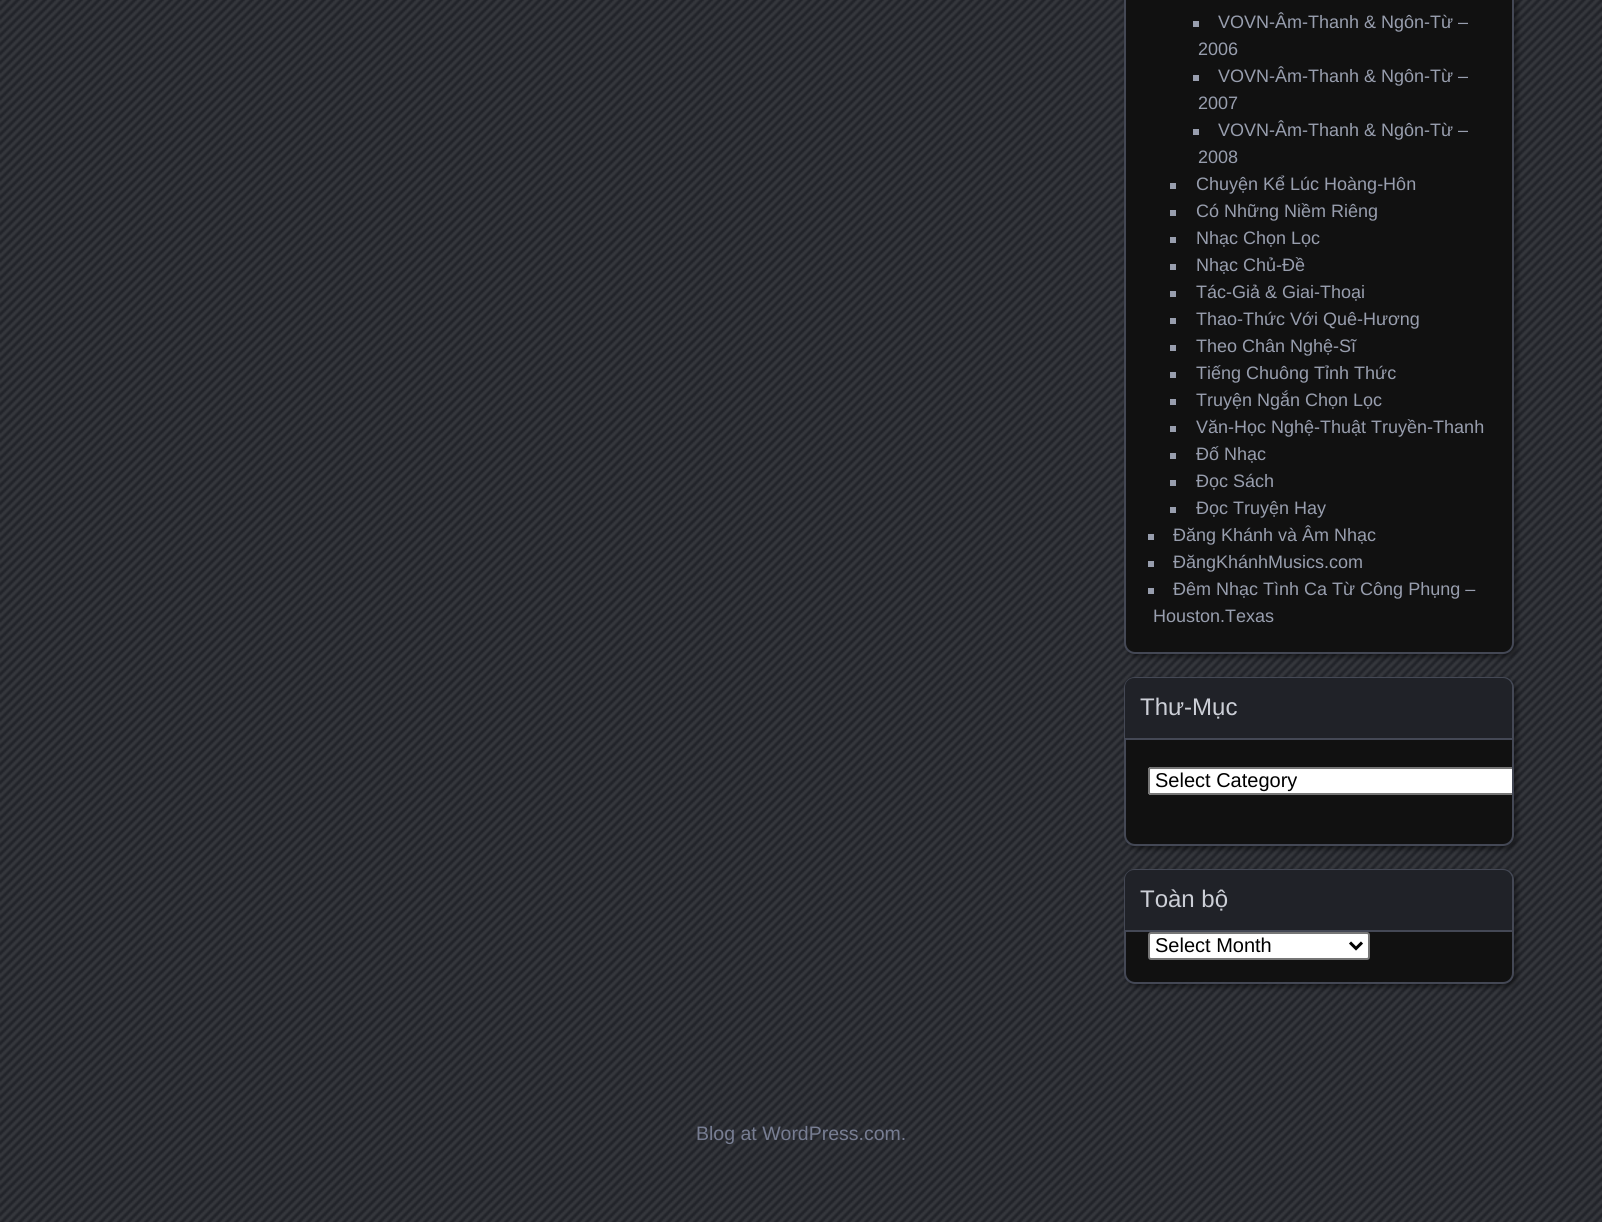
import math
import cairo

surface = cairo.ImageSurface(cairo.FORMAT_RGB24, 1602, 1222)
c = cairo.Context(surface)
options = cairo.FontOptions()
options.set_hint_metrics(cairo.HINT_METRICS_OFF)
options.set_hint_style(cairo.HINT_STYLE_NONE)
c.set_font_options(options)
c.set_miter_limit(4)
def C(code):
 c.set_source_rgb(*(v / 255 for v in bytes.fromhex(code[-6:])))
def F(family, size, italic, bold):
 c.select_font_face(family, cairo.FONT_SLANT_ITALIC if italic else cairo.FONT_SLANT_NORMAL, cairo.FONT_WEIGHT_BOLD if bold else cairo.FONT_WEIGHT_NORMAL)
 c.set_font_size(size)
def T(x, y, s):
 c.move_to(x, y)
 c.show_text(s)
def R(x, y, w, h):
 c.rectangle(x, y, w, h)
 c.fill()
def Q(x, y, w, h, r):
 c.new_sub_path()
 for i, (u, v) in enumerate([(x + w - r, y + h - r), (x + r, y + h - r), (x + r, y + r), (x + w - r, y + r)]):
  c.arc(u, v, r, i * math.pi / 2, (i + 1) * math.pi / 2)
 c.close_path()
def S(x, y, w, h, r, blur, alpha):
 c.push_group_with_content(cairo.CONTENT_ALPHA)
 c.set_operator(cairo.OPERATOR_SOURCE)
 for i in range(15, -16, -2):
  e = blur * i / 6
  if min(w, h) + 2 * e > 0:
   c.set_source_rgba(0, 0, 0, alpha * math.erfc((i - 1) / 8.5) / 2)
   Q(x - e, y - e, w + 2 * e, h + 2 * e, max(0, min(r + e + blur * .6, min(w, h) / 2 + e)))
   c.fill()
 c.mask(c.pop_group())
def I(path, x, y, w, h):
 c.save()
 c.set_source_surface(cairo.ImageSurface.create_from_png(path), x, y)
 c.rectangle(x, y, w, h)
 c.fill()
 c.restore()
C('202228')
c.paint()
I('1.png',0,0,1602,1222)
C('000000')
S(1127,-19,390,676,11,2.5,.45)
C('111111')
Q(1125,-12,388,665,10)
c.fill_preserve()
C('444855')
c.stroke()
C('989eae')
R(1193,21,6,6)
F('Liberation Sans',18,0,0)
T(1218,28,'VOVN-Âm-Thanh & Ngôn-Từ –')
T(1198,55,'2006')
R(1193,75,6,6)
T(1218,82,'VOVN-Âm-Thanh & Ngôn-Từ –')
T(1198,109,'2007')
R(1193,129,6,6)
T(1218,136,'VOVN-Âm-Thanh & Ngôn-Từ –')
T(1198,163,'2008')
R(1170,183,6,6)
T(1196,190,'Chuyện Kể Lúc Hoàng-Hôn')
R(1170,210,6,6)
T(1196,217,'Có Những Niềm Riêng')
R(1170,237,6,6)
T(1196,244,'Nhạc Chọn Lọc')
R(1170,264,6,6)
T(1196,271,'Nhạc Chủ-Đề')
R(1170,291,6,6)
T(1196,298,'Tác-Giả & Giai-Thoại')
R(1170,318,6,6)
T(1196,325,'Thao-Thức Với Quê-Hương')
R(1170,345,6,6)
T(1196,352,'Theo Chân Nghệ-Sĩ')
R(1170,372,6,6)
T(1196,379,'Tiếng Chuông Tỉnh Thức')
R(1170,399,6,6)
T(1196,406,'Truyện Ngắn Chọn Lọc')
R(1170,426,6,6)
T(1196,433,'Văn-Học Nghệ-Thuật Truyền-Thanh')
R(1170,453,6,6)
T(1196,460,'Đố Nhạc')
R(1170,480,6,6)
T(1196,487,'Đọc Sách')
R(1170,507,6,6)
T(1196,514,'Đọc Truyện Hay')
R(1148,534,6,6)
T(1173,541,'Đăng Khánh và Âm Nhạc')
R(1148,561,6,6)
T(1173,568,'ĐăngKhánhMusics.com')
R(1148,588,6,6)
T(1173,595,'Đêm Nhạc Tình Ca Từ Công Phụng –')
T(1153,622,'Houston.Texas')
C('000000')
S(1127,680,390,169,11,2.5,.45)
C('111111')
Q(1125,678,388,167,10)
c.fill_preserve()
C('444855')
c.stroke()
C('202228')
c.new_path()
c.move_to(1134,678)
c.line_to(1503,678)
c.curve_to(1508,678,1512,682,1512,687)
c.line_to(1512,740)
c.line_to(1125,740)
c.line_to(1125,687)
c.curve_to(1125,682,1129,678,1134,678)
c.close_path()
c.fill()
C('444855')
R(1125,738,387,2)
F('Liberation Sans',24,0,0)
C('cccfd7')
T(1140,715,'Thư-Mục')
C('ffffff')
c.new_path()
c.move_to(1151,767)
c.line_to(1512,767)
c.line_to(1512,795)
c.line_to(1151,795)
c.curve_to(1149.5,795,1148,793.5,1148,792)
c.line_to(1148,770)
c.curve_to(1148,768.5,1149.5,767,1151,767)
c.close_path()
c.fill()
C('767676')
c.new_path()
c.move_to(1151,767)
c.curve_to(1149,767,1148,768,1148,770)
c.line_to(1148,792)
c.curve_to(1148,794,1149,795,1151,795)
c.line_to(1512,795)
c.line_to(1512,793)
c.line_to(1151,793)
c.curve_to(1150,793,1150,793,1150,792)
c.line_to(1150,770)
c.curve_to(1150,769,1150,769,1151,769)
c.line_to(1512,769)
c.line_to(1512,767)
c.close_path()
c.fill()
F('Liberation Sans',20,0,0)
C('000000')
T(1155,787,'Select Category')
C('000000')
S(1127,872,390,115,11,2.5,.45)
C('111111')
Q(1125,870,388,113,10)
c.fill_preserve()
C('444855')
c.stroke()
C('202228')
c.new_path()
c.move_to(1134,870)
c.line_to(1503,870)
c.curve_to(1508,870,1512,874,1512,879)
c.line_to(1512,932)
c.line_to(1125,932)
c.line_to(1125,879)
c.curve_to(1125,874,1129,870,1134,870)
c.close_path()
c.fill()
C('444855')
R(1125,930,387,2)
F('Liberation Sans',24,0,0)
C('cccfd7')
T(1140,907,'Toàn bộ')
C('ffffff')
Q(1149,933,220,26,2)
c.fill_preserve()
C('767676')
c.stroke()
c.new_path()
c.move_to(1350,942.5)
c.line_to(1356,948.5)
c.line_to(1362,942.5)
C('000000')
c.set_line_width(3)
c.stroke()
F('Liberation Sans',20,0,0)
T(1155,952,'Select Month')
F('Liberation Sans',19.5,0,0)
C('777d92')
T(696,1140,'Blog at WordPress.com.')
surface.write_to_png('o.png')
